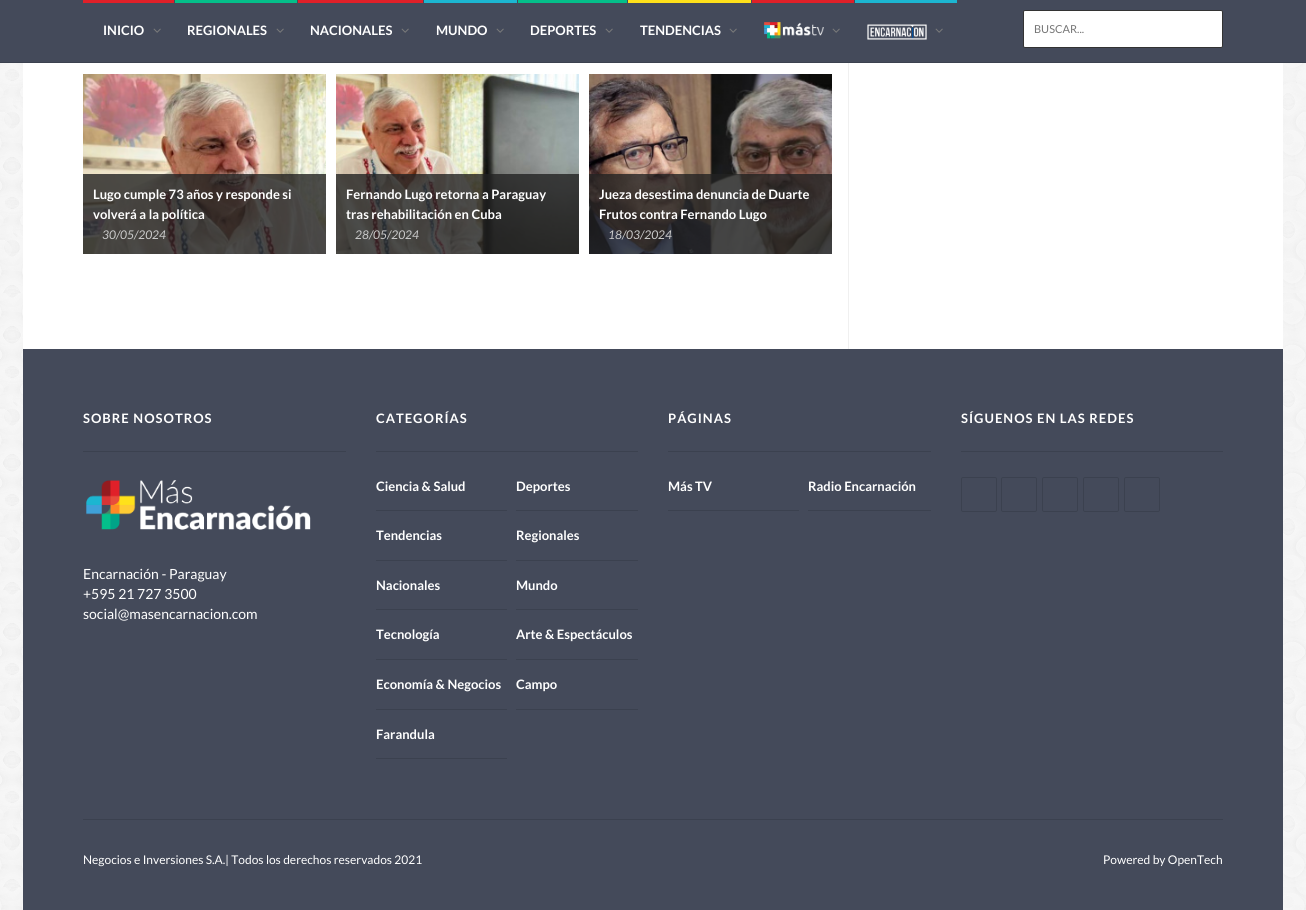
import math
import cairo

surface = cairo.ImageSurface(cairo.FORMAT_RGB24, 1306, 910)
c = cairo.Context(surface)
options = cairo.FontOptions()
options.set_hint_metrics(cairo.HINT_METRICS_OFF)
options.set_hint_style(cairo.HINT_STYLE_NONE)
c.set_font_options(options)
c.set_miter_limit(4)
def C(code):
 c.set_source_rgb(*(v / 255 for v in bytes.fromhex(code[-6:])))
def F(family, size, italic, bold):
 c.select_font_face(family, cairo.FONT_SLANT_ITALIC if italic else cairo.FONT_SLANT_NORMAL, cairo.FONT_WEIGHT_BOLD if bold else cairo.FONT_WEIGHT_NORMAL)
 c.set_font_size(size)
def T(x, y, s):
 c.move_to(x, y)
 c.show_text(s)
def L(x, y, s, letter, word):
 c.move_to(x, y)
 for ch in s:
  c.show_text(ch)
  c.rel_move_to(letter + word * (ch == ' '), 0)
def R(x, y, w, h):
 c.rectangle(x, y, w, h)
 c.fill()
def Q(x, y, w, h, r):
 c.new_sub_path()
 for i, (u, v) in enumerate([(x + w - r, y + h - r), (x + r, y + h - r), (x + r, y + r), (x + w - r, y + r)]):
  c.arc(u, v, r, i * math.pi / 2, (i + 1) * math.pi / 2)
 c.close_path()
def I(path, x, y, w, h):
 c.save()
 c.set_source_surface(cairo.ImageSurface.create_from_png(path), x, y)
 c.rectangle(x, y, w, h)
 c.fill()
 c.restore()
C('ffffff')
c.paint()
I('1.png',0,63,1306,847)
C('ffffff')
R(23,63,1260,286)
C('444a5a')
R(0,0,1306,62)
C('3b414f')
R(0,62,1306,1)
C('e02029')
R(83,0,91,3)
F('Lato',13,0,1)
C('ffffff')
T(103,35,'INICIO')
I('2.png',153,28,8,5)
C('04bf8a')
R(175,0,122,3)
C('ffffff')
T(187,35,'REGIONALES')
I('2.png',276,28,8,5)
C('e02029')
R(298,0,125,3)
C('ffffff')
T(310,35,'NACIONALES')
I('2.png',401,28,8,5)
C('1cb6d1')
R(424,0,93,3)
C('ffffff')
T(436,35,'MUNDO')
I('2.png',496,28,8,5)
C('04bf8a')
R(518,0,109,3)
C('ffffff')
T(530,35,'DEPORTES')
I('2.png',605,28,8,5)
C('ffe11a')
R(628,0,123,3)
C('ffffff')
T(640,35,'TENDENCIAS')
I('2.png',729,28,8,5)
C('e02029')
R(752,0,102,3)
I('3.png',764,22,60,17)
I('2.png',832,28,8,5)
C('1cb6d1')
R(855,0,102,3)
I('4.png',867,24,60,16)
I('2.png',935,28,8,5)
C('ffffff')
Q(1023.5,10.5,199,37,1.5)
c.fill_preserve()
C('333333')
c.set_line_width(1)
c.stroke()
F('Lato',11,0,0)
C('757575')
T(1034,33,'BUSCAR...')
I('5.png',83,74,243,180)
c.set_source_rgba(0.133,0.133,0.133,0.8)
R(83,174,243,80)
F('Lato',13,0,1)
C('ffffff')
T(93,199,'Lugo cumple 73 años y responde si')
T(93,219,'volverá a la política')
F('Lato',12,1,0)
C('cccccc')
T(102,239,'30/05/2024')
I('6.png',336,74,243,180)
c.set_source_rgba(0.133,0.133,0.133,0.8)
R(336,174,243,80)
F('Lato',13,0,1)
C('ffffff')
T(346,199,'Fernando Lugo retorna a Paraguay')
T(346,219,'tras rehabilitación en Cuba')
F('Lato',12,1,0)
C('cccccc')
T(355,239,'28/05/2024')
I('7.png',589,74,243,180)
c.set_source_rgba(0.133,0.133,0.133,0.8)
R(589,174,243,80)
F('Lato',13,0,1)
C('ffffff')
T(599,199,'Jueza desestima denuncia de Duarte')
T(599,219,'Frutos contra Fernando Lugo')
F('Lato',12,1,0)
C('cccccc')
T(608,239,'18/03/2024')
C('f0f0f0')
R(848,63,1,286)
C('444a5a')
R(23,349,1260,561)
C('3b414f')
R(83,451,263,1)
F('Lato',13,0,1)
C('ffffff')
L(83,423,'SOBRE NOSOTROS',1,0)
I('8.png',86,480,225,50)
F('Lato',14,0,0)
T(83,579,'Encarnación - Paraguay')
T(83,599,'+595 21 727 3500')
T(83,619,'social@masencarnacion.com')
C('3b414f')
R(376,451,262,1)
F('Lato',13,0,1)
C('ffffff')
L(376,423,'CATEGORÍAS',1,0)
C('3b414f')
R(376,510,131,1)
C('ffffff')
T(376,491,'Ciencia & Salud')
C('3b414f')
R(516,510,122,1)
C('ffffff')
T(516,491,'Deportes')
C('3b414f')
R(376,560,131,1)
C('ffffff')
T(376,540,'Tendencias')
C('3b414f')
R(516,560,122,1)
C('ffffff')
T(516,540,'Regionales')
C('3b414f')
R(376,609,131,1)
C('ffffff')
T(376,590,'Nacionales')
C('3b414f')
R(516,609,122,1)
C('ffffff')
T(516,590,'Mundo')
C('3b414f')
R(376,659,131,1)
C('ffffff')
T(376,639,'Tecnología')
C('3b414f')
R(516,659,122,1)
C('ffffff')
T(516,639,'Arte & Espectáculos')
C('3b414f')
R(376,709,131,1)
C('ffffff')
T(376,689,'Economía & Negocios')
C('3b414f')
R(516,709,122,1)
C('ffffff')
T(516,689,'Campo')
C('3b414f')
R(376,758,131,1)
C('ffffff')
T(376,739,'Farandula')
C('3b414f')
R(668,451,263,1)
C('ffffff')
L(668,423,'PÁGINAS',1,0)
C('3b414f')
R(668,510,131,1)
C('ffffff')
T(668,491,'Más TV')
C('3b414f')
R(808,510,123,1)
C('ffffff')
T(808,491,'Radio Encarnación')
C('3b414f')
R(961,451,262,1)
C('ffffff')
L(961,423,'SÍGUENOS EN LAS REDES',1,0)
Q(961.5,477.5,35,34,1.5)
C('3b414f')
c.stroke()
Q(1001.5,477.5,35,34,1.5)
c.stroke()
Q(1042.5,477.5,35,34,1.5)
c.stroke()
Q(1083.5,477.5,35,34,1.5)
c.stroke()
Q(1124.5,477.5,35,34,1.5)
c.stroke()
R(83,819,1140,1)
F('Lato',12,0,0)
C('ffffff')
T(83,864,'Negocios e Inversiones S.A.| Todos los derechos reservados 2021')
T(1103,864,'Powered by OpenTech')
surface.write_to_png('o.png')
